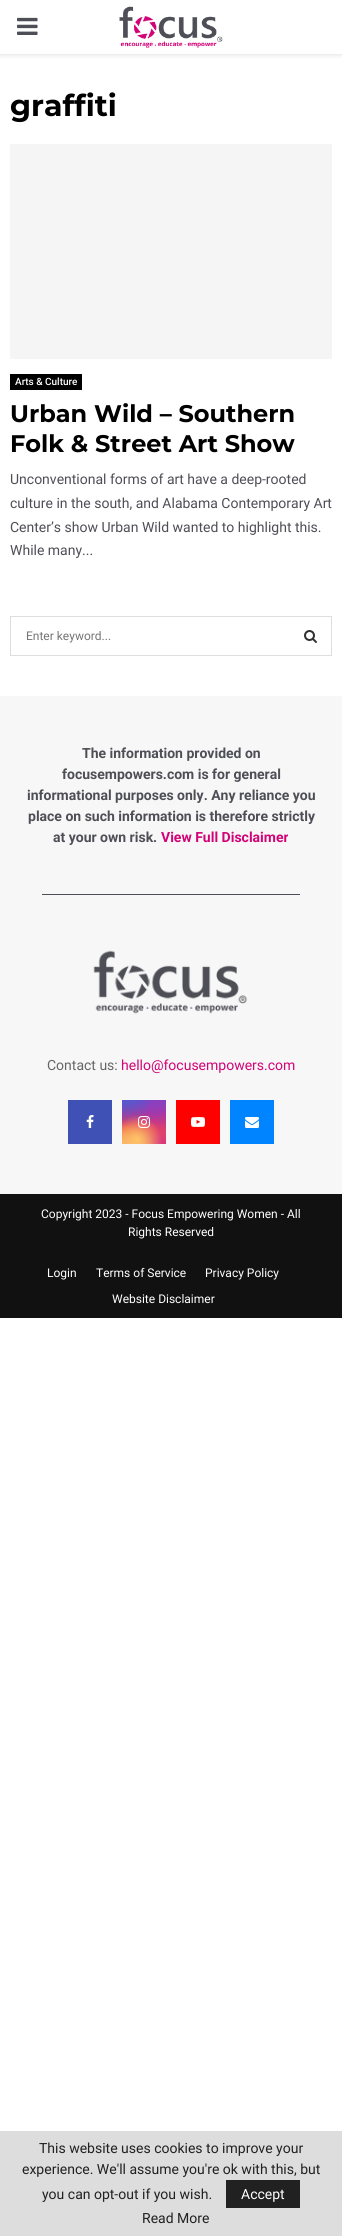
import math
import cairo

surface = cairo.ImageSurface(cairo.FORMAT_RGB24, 342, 2236)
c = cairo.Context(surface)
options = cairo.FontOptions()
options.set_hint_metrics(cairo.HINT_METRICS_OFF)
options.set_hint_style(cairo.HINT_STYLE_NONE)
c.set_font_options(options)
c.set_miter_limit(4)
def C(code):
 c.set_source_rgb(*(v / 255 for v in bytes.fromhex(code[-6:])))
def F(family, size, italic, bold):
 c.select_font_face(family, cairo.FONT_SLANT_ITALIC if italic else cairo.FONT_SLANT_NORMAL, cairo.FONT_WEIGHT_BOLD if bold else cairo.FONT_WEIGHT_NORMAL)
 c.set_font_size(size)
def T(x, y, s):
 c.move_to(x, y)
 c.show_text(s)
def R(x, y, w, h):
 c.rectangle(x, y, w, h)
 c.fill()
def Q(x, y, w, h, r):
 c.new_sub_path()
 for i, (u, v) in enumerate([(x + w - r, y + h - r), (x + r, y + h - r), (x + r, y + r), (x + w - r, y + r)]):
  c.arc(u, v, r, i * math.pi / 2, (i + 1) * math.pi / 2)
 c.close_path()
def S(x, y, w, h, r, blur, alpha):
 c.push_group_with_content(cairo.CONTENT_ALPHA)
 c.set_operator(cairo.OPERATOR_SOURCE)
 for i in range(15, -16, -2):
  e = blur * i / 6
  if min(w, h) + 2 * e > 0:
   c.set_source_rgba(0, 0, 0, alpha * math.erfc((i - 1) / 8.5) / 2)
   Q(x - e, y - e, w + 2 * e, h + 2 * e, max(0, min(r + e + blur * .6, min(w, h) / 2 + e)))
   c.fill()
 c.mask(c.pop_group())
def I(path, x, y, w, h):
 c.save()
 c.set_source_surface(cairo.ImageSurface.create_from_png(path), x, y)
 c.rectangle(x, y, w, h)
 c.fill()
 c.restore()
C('ffffff')
c.paint()
c.save()
c.rectangle(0,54,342,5)
c.clip()
C('bebebe')
S(0,1,342,54,0,2.5,.46)
c.restore()
I('1.png',17,17,21,18)
I('2.png',119,6,104,42)
F('Montserrat',30,0,1)
C('000000')
T(10,116,'graffiti')
C('f5f5f5')
R(10,144,322,215)
C('000000')
R(10,374,72,16)
F('Roboto Medium',10,0,0)
C('ffffff')
T(15,385,'Arts & Culture')
F('Montserrat',24,0,1)
C('000000')
T(10,422,'Urban Wild – Southern')
T(10,452,'Folk & Street Art Show')
F('Roboto',14,0,0)
C('4e4e56')
T(10,484,'Unconventional forms of art have a deep-rooted')
T(10,508,'culture in the south, and Alabama Contemporary Art')
T(10,532,'Center’s show Urban Wild wanted to highlight this.')
T(10,555,'While many...')
c.rectangle(10.5,616.5,321,39)
C('dedede')
c.set_line_width(1)
c.stroke()
F('Roboto',12,0,0)
C('757575')
T(26,640,'Enter keyword...')
I('3.png',304,630,13,13)
C('f7f7f7')
R(0,696,342,498)
F('Roboto',14,0,1)
C('4e4e56')
T(82,758,'The information provided on')
T(62,779,'focusempowers.com is for general')
T(27,800,'informational purposes only. Any reliance you')
T(28,821,'place on such information is therefore strictly')
T(53,842,'at your own risk.')
C('d20277')
T(161,842,'View Full Disclaimer')
C('4e4e56')
R(42,894,258,1)
I('4.png',93,950,155,64)
F('Roboto',14,0,0)
C('666666')
T(47,1070,'Contact us:')
C('d20277')
T(121,1070,'hello@focusempowers.com')
C('3f51b5')
R(68,1100,44,44)
I('5.png',86,1115,8,13)
gradient = cairo.LinearGradient(144,1100,144,1144)
gradient.add_color_stop_rgba(0,0.396,0.349,0.792,1)
gradient.add_color_stop_rgba(.3,0.737,0.192,0.561,1)
gradient.add_color_stop_rgba(.5,0.89,0.247,0.373,1)
gradient.add_color_stop_rgba(.7,0.969,0.463,0.22,1)
gradient.add_color_stop_rgba(1,0.996,0.776,0.427,1)
c.set_source(gradient)
R(122,1100,44,44)
gradient = cairo.RadialGradient(166,1144,0,166,1144,62)
gradient.add_color_stop_rgba(0,0.851,0.192,0.478,1)
gradient.add_color_stop_rgba(1,0.851,0.192,0.478,0)
c.set_source(gradient)
R(122,1100,44,44)
gradient = cairo.RadialGradient(0,0,0,0,0,1)
gradient.set_matrix(cairo.Matrix(1 / 37, 0, 0, 1 / 75, -1 * 148 / 37, -1 * 1091 / 75))
gradient.add_color_stop_rgba(0,0.537,0.239,0.761,1)
gradient.add_color_stop_rgba(.5,0.537,0.239,0.761,0)
c.set_source(gradient)
R(133,1100,31,28)
gradient = cairo.RadialGradient(166,1100,0,166,1100,62)
gradient.add_color_stop_rgba(0,0.537,0.239,0.761,1)
gradient.add_color_stop_rgba(.5,0.537,0.239,0.761,0)
c.set_source(gradient)
R(139,1100,27,30)
gradient = cairo.RadialGradient(0,0,0,0,0,1)
gradient.set_matrix(cairo.Matrix(1 / 50, 0, 0, 1 / 93, -1 * 131 / 50, -1 * 1078 / 93))
gradient.add_color_stop_rgba(0,0.322,0.345,0.812,1)
gradient.add_color_stop_rgba(.5,0.322,0.345,0.812,0)
c.set_source(gradient)
R(122,1100,29,23)
gradient = cairo.RadialGradient(0,0,0,0,0,1)
gradient.set_matrix(cairo.Matrix(1 / 62, 0, 0, 1 / 78, -1 * 122 / 62, -1 * 1089 / 78))
gradient.add_color_stop_rgba(0,0.322,0.345,0.812,1)
gradient.add_color_stop_rgba(.5,0.322,0.345,0.812,0)
c.set_source(gradient)
R(122,1100,28,27)
gradient = cairo.RadialGradient(122,1162,0,122,1162,76)
gradient.add_color_stop_rgba(0,0.996,0.773,0.392,1)
gradient.add_color_stop_rgba(.5,0.996,0.773,0.392,0)
c.set_source(gradient)
R(122,1125,32,19)
gradient = cairo.RadialGradient(137,1140,0,137,1140,49)
gradient.add_color_stop_rgba(0,0.996,0.773,0.392,1)
gradient.add_color_stop_rgba(.5,0.996,0.773,0.392,0)
c.set_source(gradient)
R(122,1116,39,28)
I('6.png',138,1116,12,12)
C('ff0000')
R(176,1100,44,44)
I('7.png',191,1117,14,10)
C('0084ff')
R(230,1100,44,44)
I('8.png',245,1117,14,11)
C('111111')
R(0,1194,342,124)
F('Roboto',12,0,0)
C('ffffff')
T(41,1218,'Copyright 2023 - Focus Empowering Women - All')
T(128,1236,'Rights Reserved')
T(47,1277,'Login')
T(96,1277,'Terms of Service')
T(205,1277,'Privacy Policy')
T(112,1303,'Website Disclaimer')
C('dddddd')
R(0,2131,342,105)
F('Roboto',14,0,0)
C('212121')
T(39,2153,'This website uses cookies to improve your')
T(22,2174,'experience. We\'ll assume you\'re ok with this, but')
T(42,2199,'you can opt-out if you wish.')
R(226,2180,74,28)
C('ffffff')
T(241,2199,'Accept')
C('212121')
T(142,2223,'Read More')
surface.write_to_png('o.png')
